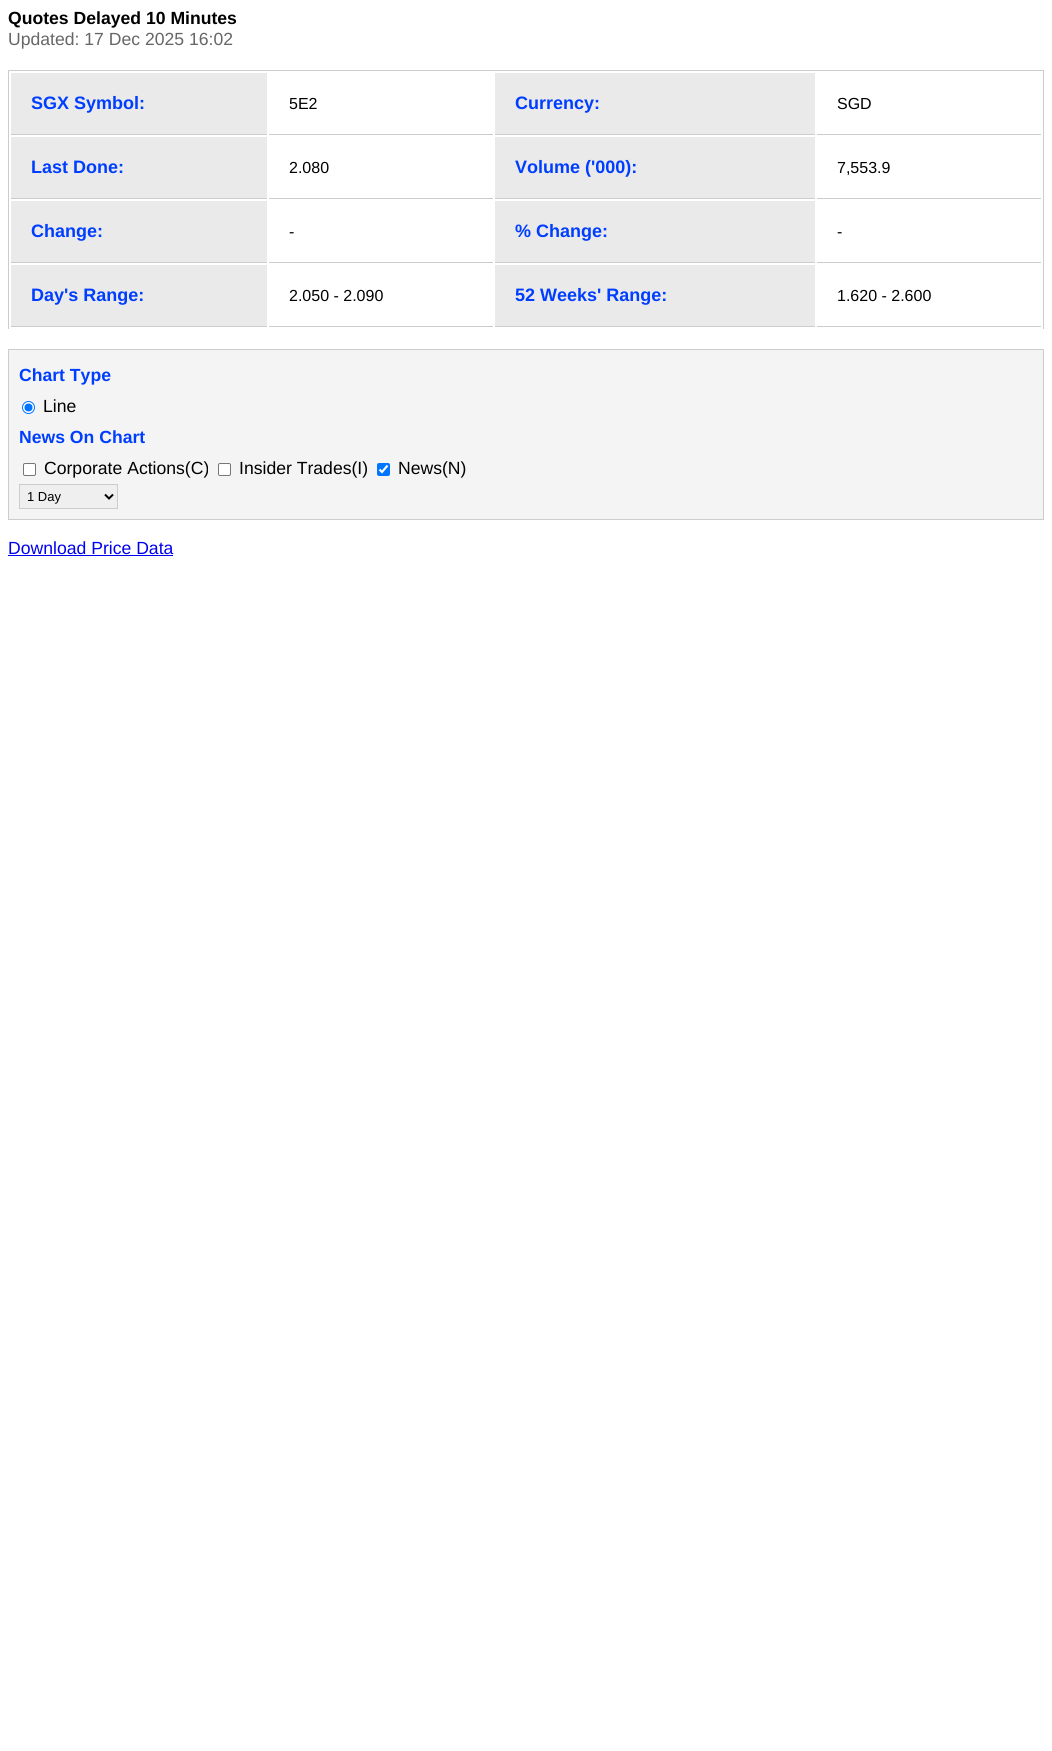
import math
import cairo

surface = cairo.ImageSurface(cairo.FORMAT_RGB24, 1052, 1751)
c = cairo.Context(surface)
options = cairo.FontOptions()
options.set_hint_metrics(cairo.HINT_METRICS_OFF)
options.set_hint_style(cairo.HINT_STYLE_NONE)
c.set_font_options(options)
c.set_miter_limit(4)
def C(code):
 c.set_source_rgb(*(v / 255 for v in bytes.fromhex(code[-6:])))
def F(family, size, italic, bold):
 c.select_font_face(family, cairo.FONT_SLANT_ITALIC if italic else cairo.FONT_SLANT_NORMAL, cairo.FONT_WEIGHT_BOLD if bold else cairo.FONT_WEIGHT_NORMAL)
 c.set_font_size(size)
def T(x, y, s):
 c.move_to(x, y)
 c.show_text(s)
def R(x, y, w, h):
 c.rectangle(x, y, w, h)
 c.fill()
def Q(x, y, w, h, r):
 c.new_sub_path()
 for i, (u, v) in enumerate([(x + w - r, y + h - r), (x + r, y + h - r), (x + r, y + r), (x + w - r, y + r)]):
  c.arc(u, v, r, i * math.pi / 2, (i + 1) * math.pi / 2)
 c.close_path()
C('ffffff')
c.paint()
F('Liberation Sans',17.6,0,1)
C('000000')
T(8,24,'Quotes Delayed 10 Minutes')
F('Liberation Sans',17.6,0,0)
C('666666')
T(8,45,'Updated: 17 Dec 2025 16:02')
C('cccccc')
R(8,70,1036,1)
R(1043,70,1,259)
R(8,70,1,259)
C('eaeaea')
R(11,73,256,61)
C('cccccc')
R(11,134,256,1)
F('Liberation Sans',18,0,1)
C('003eff')
T(31,109,'SGX Symbol:')
C('cccccc')
R(269,134,224,1)
F('Liberation Sans',16,0,0)
C('000000')
T(289,109,'5E2')
C('eaeaea')
R(495,73,320,61)
C('cccccc')
R(495,134,320,1)
F('Liberation Sans',18,0,1)
C('003eff')
T(515,109,'Currency:')
C('cccccc')
R(817,134,224,1)
F('Liberation Sans',16,0,0)
C('000000')
T(837,109,'SGD')
C('eaeaea')
R(11,137,256,61)
C('cccccc')
R(11,198,256,1)
F('Liberation Sans',18,0,1)
C('003eff')
T(31,173,'Last Done:')
C('cccccc')
R(269,198,224,1)
F('Liberation Sans',16,0,0)
C('000000')
T(289,173,'2.080')
C('eaeaea')
R(495,137,320,61)
C('cccccc')
R(495,198,320,1)
F('Liberation Sans',18,0,1)
C('003eff')
T(515,173,'Volume (\'000):')
C('cccccc')
R(817,198,224,1)
F('Liberation Sans',16,0,0)
C('000000')
T(837,173,'7,553.9')
C('eaeaea')
R(11,201,256,61)
C('cccccc')
R(11,262,256,1)
F('Liberation Sans',18,0,1)
C('003eff')
T(31,237,'Change:')
C('cccccc')
R(269,262,224,1)
F('Liberation Sans',16,0,0)
C('000000')
T(289,237,'-')
C('eaeaea')
R(495,201,320,61)
C('cccccc')
R(495,262,320,1)
F('Liberation Sans',18,0,1)
C('003eff')
T(515,237,'% Change:')
C('cccccc')
R(817,262,224,1)
F('Liberation Sans',16,0,0)
C('000000')
T(837,237,'-')
C('eaeaea')
R(11,265,256,61)
C('cccccc')
R(11,326,256,1)
F('Liberation Sans',18,0,1)
C('003eff')
T(31,301,'Day\'s Range:')
C('cccccc')
R(269,326,224,1)
F('Liberation Sans',16,0,0)
C('000000')
T(289,301,'2.050 - 2.090')
C('eaeaea')
R(495,265,320,61)
C('cccccc')
R(495,326,320,1)
F('Liberation Sans',18,0,1)
C('003eff')
T(515,301,'52 Weeks\' Range:')
C('cccccc')
R(817,326,224,1)
F('Liberation Sans',16,0,0)
C('000000')
T(837,301,'1.620 - 2.600')
C('f4f4f4')
c.rectangle(8.5,349.5,1035,170)
c.fill_preserve()
C('cccccc')
c.set_line_width(1)
c.stroke()
F('Liberation Sans',17.6,0,1)
C('003eff')
T(19,381,'Chart Type')
C('ffffff')
c.new_path()
c.arc(28.5,407.5,6,0,2 * math.pi)
c.fill_preserve()
C('0075ff')
c.stroke()
c.arc(28.5,407.5,4,0,2 * math.pi)
c.fill()
F('Liberation Sans',17.6,0,0)
C('000000')
T(43,412,'Line')
F('Liberation Sans',17.6,0,1)
C('003eff')
T(19,443,'News On Chart')
C('ffffff')
Q(23.5,463.5,12,12,1.5)
c.fill_preserve()
C('767676')
c.stroke()
F('Liberation Sans',17.6,0,0)
C('000000')
T(44,474,'Corporate Actions(C)')
C('ffffff')
Q(218.5,463.5,12,12,1.5)
c.fill_preserve()
C('767676')
c.stroke()
C('000000')
T(239,474,'Insider Trades(I)')
C('0075ff')
Q(377,463,13,13,2)
c.fill()
c.new_path()
c.move_to(379.5,469.5)
c.line_to(382,472)
c.line_to(387.5,465.5)
C('ffffff')
c.set_line_width(2.1)
c.stroke()
C('000000')
T(398,474,'News(N)')
C('efefef')
c.rectangle(19.5,484.5,98,24)
c.fill_preserve()
C('cccccc')
c.set_line_width(1)
c.stroke()
c.new_path()
c.move_to(105,494.5)
c.line_to(109,498.5)
c.line_to(113,494.5)
C('000000')
c.set_line_width(2)
c.stroke()
F('Liberation Sans',13,0,0)
T(27,501,'1 Day')
F('Liberation Sans',17.6,0,0)
C('0000ee')
T(8,554,'Download Price Data')
R(8,555,165,1)
surface.write_to_png('o.png')
